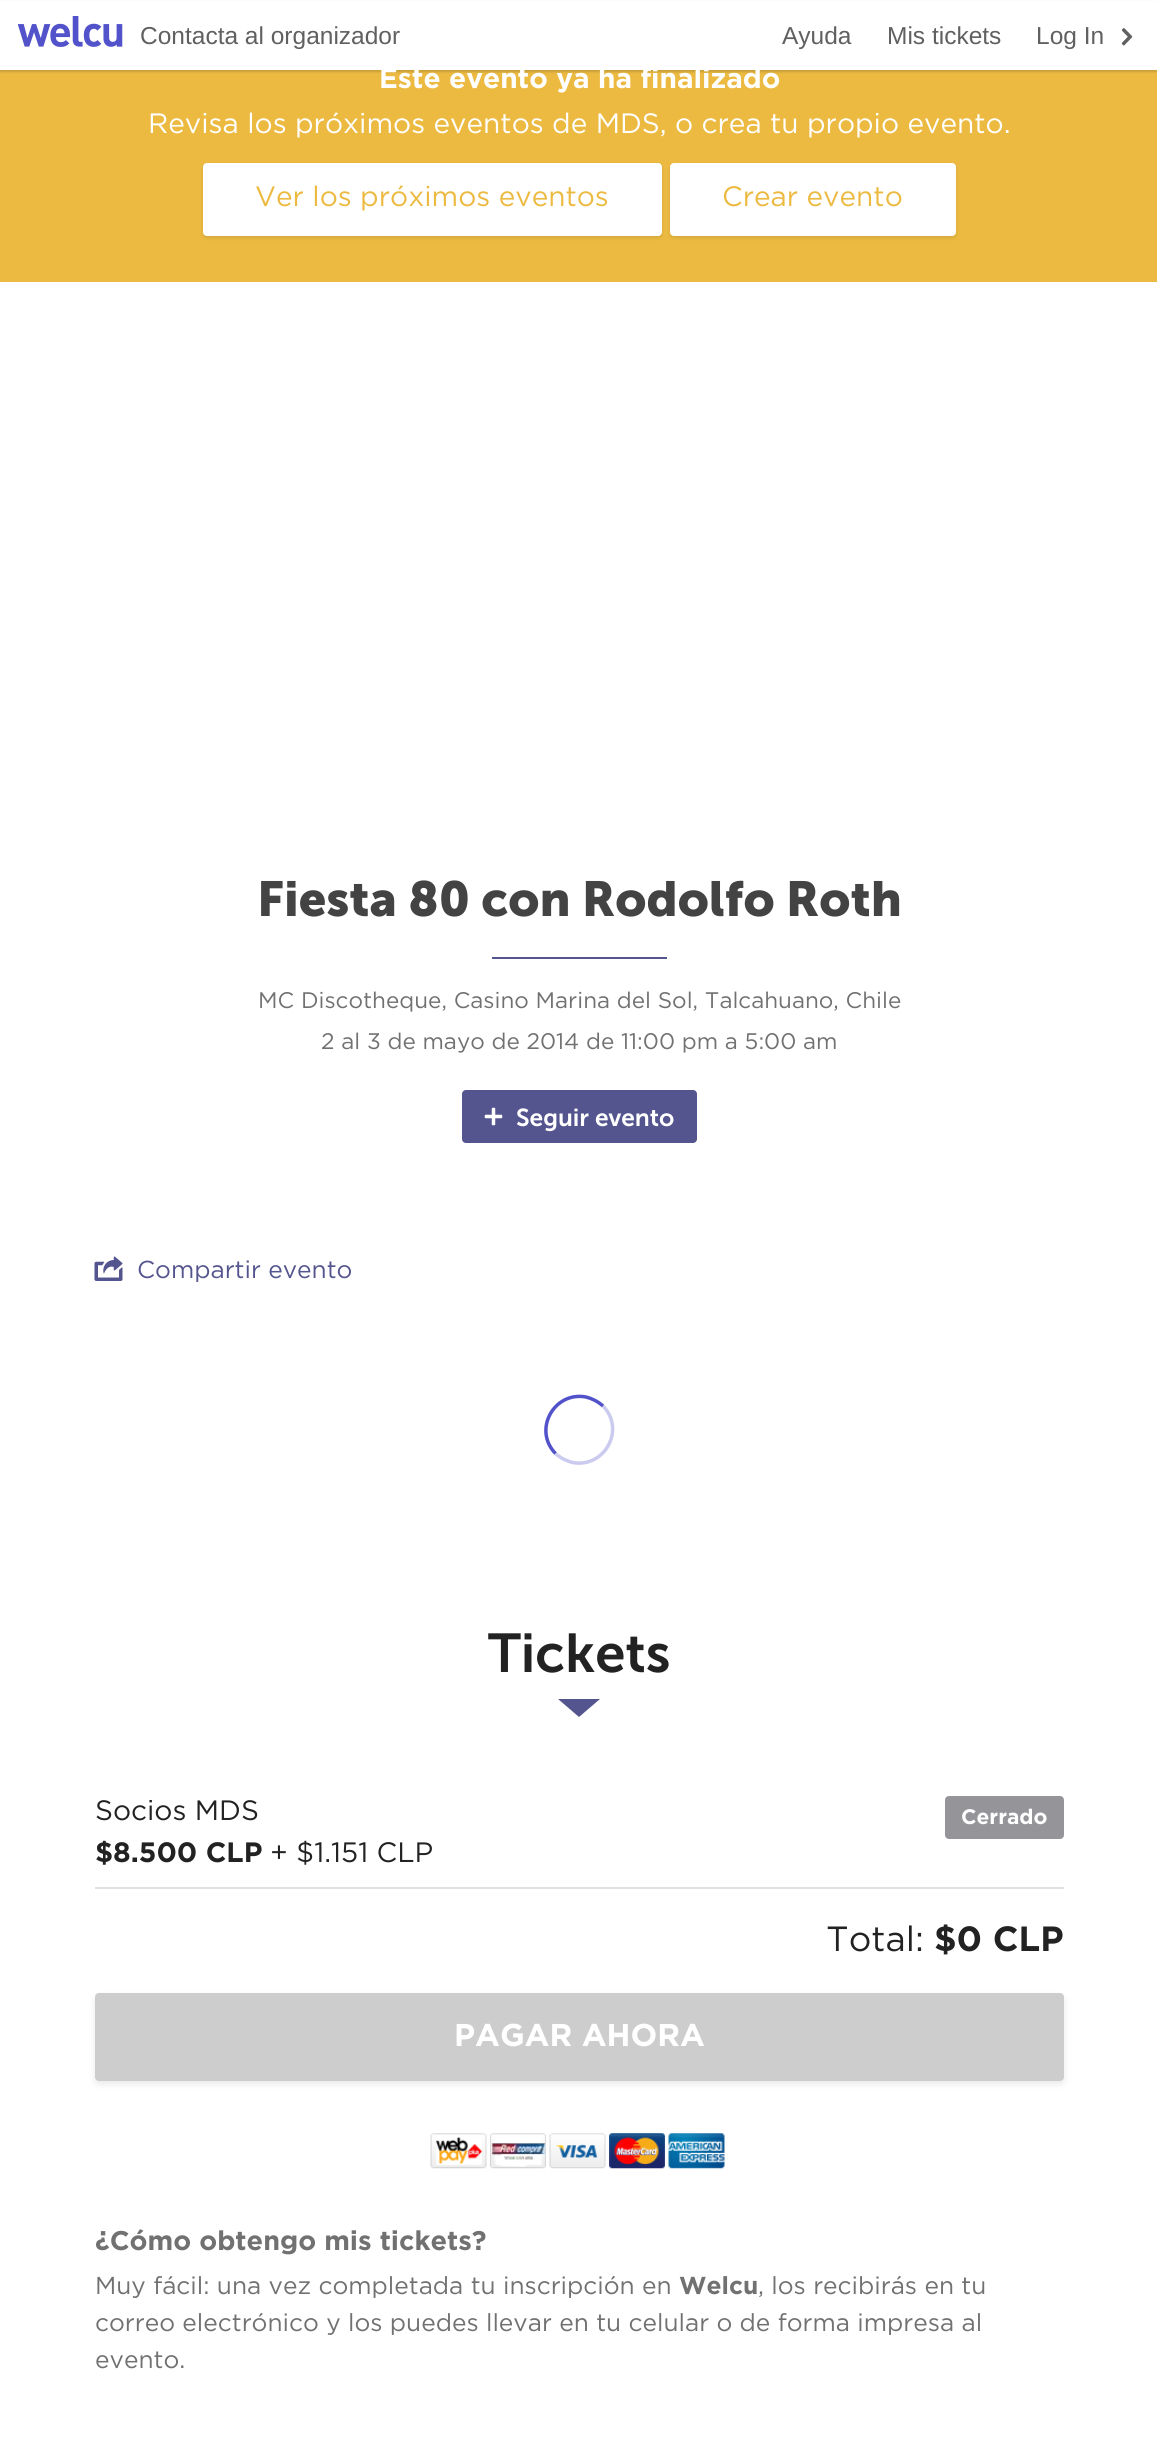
import math
import cairo

surface = cairo.ImageSurface(cairo.FORMAT_RGB24, 1157, 2441)
c = cairo.Context(surface)
options = cairo.FontOptions()
options.set_hint_metrics(cairo.HINT_METRICS_OFF)
options.set_hint_style(cairo.HINT_STYLE_NONE)
c.set_font_options(options)
c.set_miter_limit(4)
def C(code):
 c.set_source_rgb(*(v / 255 for v in bytes.fromhex(code[-6:])))
def F(family, size, italic, bold):
 c.select_font_face(family, cairo.FONT_SLANT_ITALIC if italic else cairo.FONT_SLANT_NORMAL, cairo.FONT_WEIGHT_BOLD if bold else cairo.FONT_WEIGHT_NORMAL)
 c.set_font_size(size)
def T(x, y, s):
 c.move_to(x, y)
 c.show_text(s)
def R(x, y, w, h):
 c.rectangle(x, y, w, h)
 c.fill()
def Q(x, y, w, h, r):
 c.new_sub_path()
 for i, (u, v) in enumerate([(x + w - r, y + h - r), (x + r, y + h - r), (x + r, y + r), (x + w - r, y + r)]):
  c.arc(u, v, r, i * math.pi / 2, (i + 1) * math.pi / 2)
 c.close_path()
def S(x, y, w, h, r, blur, alpha):
 c.push_group_with_content(cairo.CONTENT_ALPHA)
 c.set_operator(cairo.OPERATOR_SOURCE)
 for i in range(15, -16, -2):
  e = blur * i / 6
  if min(w, h) + 2 * e > 0:
   c.set_source_rgba(0, 0, 0, alpha * math.erfc((i - 1) / 8.5) / 2)
   Q(x - e, y - e, w + 2 * e, h + 2 * e, max(0, min(r + e + blur * .6, min(w, h) / 2 + e)))
   c.fill()
 c.mask(c.pop_group())
def I(path, x, y, w, h):
 c.save()
 c.set_source_surface(cairo.ImageSurface.create_from_png(path), x, y)
 c.rectangle(x, y, w, h)
 c.fill()
 c.restore()
C('ffffff')
c.paint()
C('ecba41')
R(0,70,1157,212)
C('000000')
S(0,2,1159,70,0,1,.15)
C('ffffff')
R(0,1,1157,69)
I('1.png',18,16,105,31)
F('Liberation Sans',24.5,0,0)
C('606060')
T(140,44,'Contacta al organizador')
T(782,44,'Ayuda')
T(887,44,'Mis tickets')
T(1036,44,'Log In')
I('2.png',1121,28,12,18)
F('Gotham',28,0,1)
C('ffffff')
T(379,88,'Este evento ya ha finalizado')
F('Gotham',28,0,0)
T(148,133,'Revisa los próximos eventos de MDS, o crea tu propio evento.')
C('000000')
S(203,165,459,73,4,2,.1)
C('ffffff')
Q(203,163,459,73,4)
c.fill()
C('ecba41')
T(255,206,'Ver los próximos eventos')
C('000000')
S(670,165,286,73,4,2,.1)
C('ffffff')
Q(670,163,286,73,4)
c.fill()
C('ecba41')
T(722,206,'Crear evento')
F('Museo Sans',49,0,1)
C('434343')
T(257,916,'Fiesta 80 con Rodolfo Roth')
C('54558e')
R(492,957,175,2)
F('Gotham',22.5,0,0)
C('727171')
T(258,1008,'MC Discotheque, Casino Marina del Sol, Talcahuano, Chile')
T(321,1049,'2 al 3 de mayo de 2014 de 11:00 pm a 5:00 am')
C('54558e')
Q(462,1090,235,53,4)
c.fill()
I('3.png',484,1107,19,19)
F('Museo Sans SemiBold',24.5,0,0)
C('ffffff')
T(516,1126,'Seguir evento')
I('4.png',94,1256,29,25)
F('Gotham',24.5,0,0)
C('54558e')
T(137,1278,'Compartir evento')
c.new_path()
c.move_to(555.5,1453.5)
c.curve_to(532.5,1430,554,1391,586,1397)
c.curve_to(592,1398.5,598,1401.5,603,1406)
C('5252ca')
c.set_line_width(3.5)
c.stroke()
c.new_path()
c.move_to(603,1406)
c.curve_to(626,1429.5,604.5,1468.5,572.5,1462.5)
c.curve_to(566.5,1461,560.5,1458,555.5,1453.5)
c.set_source_rgba(0.322,0.322,0.792,0.3)
c.stroke()
F('Museo Sans SemiBold',54.5,0,0)
C('222222')
T(488,1672,'Tickets')
C('54558e')
c.new_path()
c.move_to(558,1699)
c.line_to(600,1699)
c.line_to(579,1717)
c.close_path()
c.fill()
F('Gotham',28,0,0)
C('222222')
T(95,1820,'Socios MDS')
F('Gotham',28,0,1)
T(95,1862,'$8.500 CLP')
F('Gotham',28,0,0)
T(270,1862,'+ $1.151 CLP')
C('e1e1e1')
R(95,1887,969,2)
C('949499')
Q(946,1797,117,41,3)
c.fill_preserve()
c.set_line_width(2)
c.stroke()
F('Gotham',21,0,1)
C('ffffff')
T(961,1824,'Cerrado')
F('Gotham',35,0,0)
C('222222')
T(826,1951,'Total:')
F('Gotham',35,0,1)
T(934,1951,'$0 CLP')
C('b3b3b3')
S(95,1997,969,87,4,3.5,.3)
C('cdcdcd')
Q(95,1993,969,88,4)
c.fill()
F('Gotham',31.5,0,1)
C('ffffff')
T(454,2046,'PAGAR AHORA')
I('5.png',430,2133,57,36)
I('6.png',490,2133,56,36)
I('7.png',549,2133,57,36)
I('8.png',609,2133,56,36)
I('9.png',668,2133,57,36)
F('Gotham',27,0,1)
C('727171')
T(95,2250,'¿Cómo obtengo mis tickets?')
F('Gotham',24.5,0,0)
T(95,2294,'Muy fácil: una vez completada tu inscripción en')
F('Gotham',24.5,0,1)
T(679,2294,'Welcu')
F('Gotham',24.5,0,0)
T(758,2294,', los recibirás en tu')
T(95,2331,'correo electrónico y los puedes llevar en tu celular o de forma impresa al')
T(95,2368,'evento.')
surface.write_to_png('o.png')
